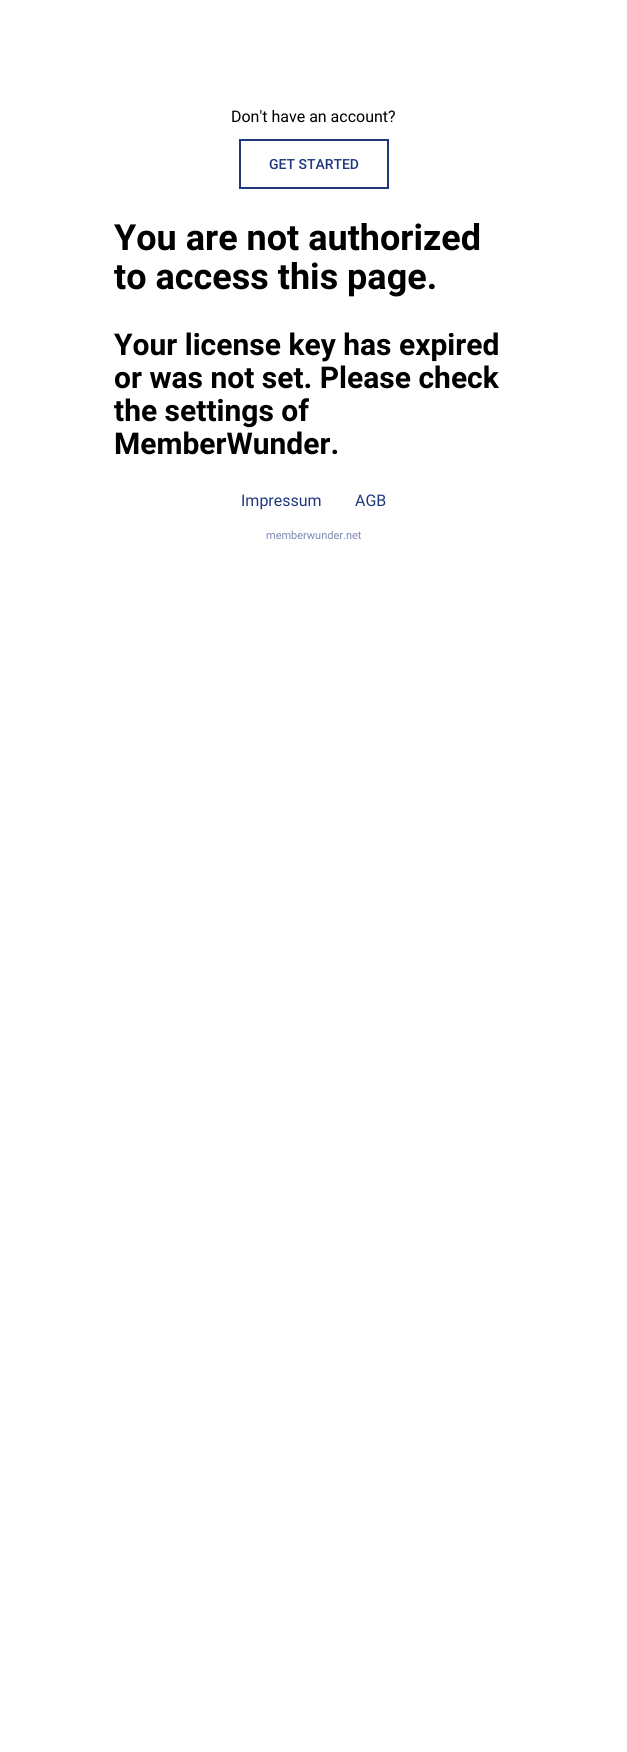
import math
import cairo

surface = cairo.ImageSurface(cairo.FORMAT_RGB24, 627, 1752)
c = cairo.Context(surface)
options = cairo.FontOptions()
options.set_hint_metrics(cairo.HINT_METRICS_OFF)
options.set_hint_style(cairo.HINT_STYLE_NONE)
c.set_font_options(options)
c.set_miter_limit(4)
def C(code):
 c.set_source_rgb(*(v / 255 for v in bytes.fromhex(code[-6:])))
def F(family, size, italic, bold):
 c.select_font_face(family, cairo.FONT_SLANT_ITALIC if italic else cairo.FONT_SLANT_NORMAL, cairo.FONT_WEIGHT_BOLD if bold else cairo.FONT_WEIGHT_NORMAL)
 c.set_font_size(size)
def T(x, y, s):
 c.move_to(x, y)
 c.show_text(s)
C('ffffff')
c.paint()
F('Roboto',16,0,0)
C('000000')
T(231,122,'Don\'t have an account?')
c.rectangle(240,140,148,48)
C('21387c')
c.stroke()
F('Roboto Medium',14,0,0)
T(269,169,'GET STARTED')
F('Roboto',36,0,1)
C('000000')
T(114,250,'You are not authorized')
c.save()
c.rectangle(114,189,400,301)
c.clip()
T(114,289,'to access this page.')
c.restore()
F('Roboto',30,0,1)
T(114,355,'Your license key has expired')
T(114,388,'or was not set. Please check')
c.save()
c.rectangle(114,189,400,301)
c.clip()
T(114,421,'the settings of')
c.restore()
T(114,454,'MemberWunder.')
F('Roboto',16,0,0)
C('21387c')
T(241,506,'Impressum')
T(355,506,'AGB')
F('Roboto',11,0,0)
C('7a88b0')
T(266,539,'memberwunder.net')
surface.write_to_png('o.png')
